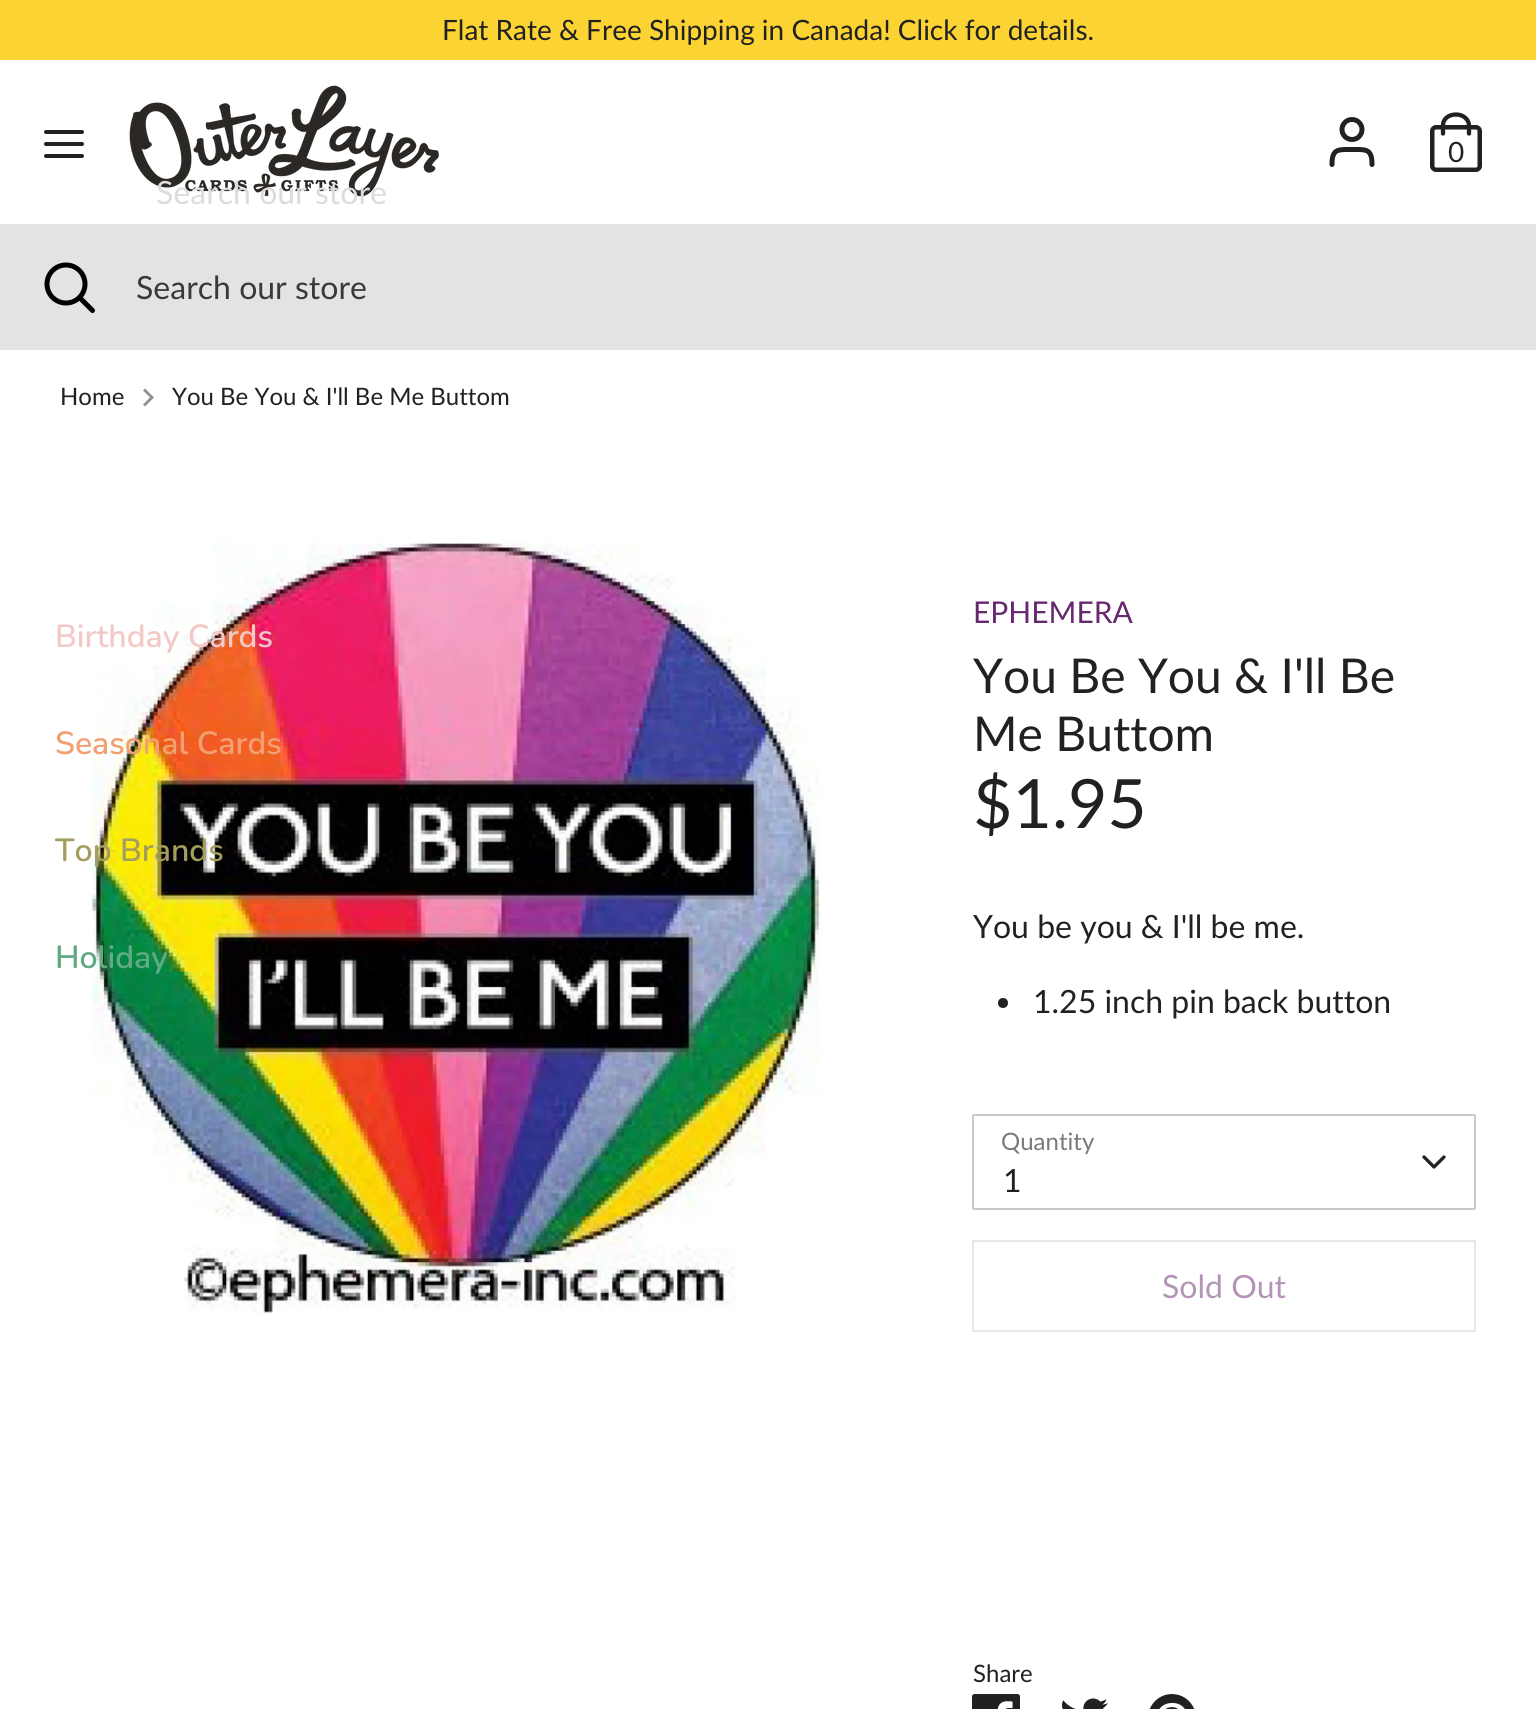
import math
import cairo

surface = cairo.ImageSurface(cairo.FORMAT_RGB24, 1536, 1709)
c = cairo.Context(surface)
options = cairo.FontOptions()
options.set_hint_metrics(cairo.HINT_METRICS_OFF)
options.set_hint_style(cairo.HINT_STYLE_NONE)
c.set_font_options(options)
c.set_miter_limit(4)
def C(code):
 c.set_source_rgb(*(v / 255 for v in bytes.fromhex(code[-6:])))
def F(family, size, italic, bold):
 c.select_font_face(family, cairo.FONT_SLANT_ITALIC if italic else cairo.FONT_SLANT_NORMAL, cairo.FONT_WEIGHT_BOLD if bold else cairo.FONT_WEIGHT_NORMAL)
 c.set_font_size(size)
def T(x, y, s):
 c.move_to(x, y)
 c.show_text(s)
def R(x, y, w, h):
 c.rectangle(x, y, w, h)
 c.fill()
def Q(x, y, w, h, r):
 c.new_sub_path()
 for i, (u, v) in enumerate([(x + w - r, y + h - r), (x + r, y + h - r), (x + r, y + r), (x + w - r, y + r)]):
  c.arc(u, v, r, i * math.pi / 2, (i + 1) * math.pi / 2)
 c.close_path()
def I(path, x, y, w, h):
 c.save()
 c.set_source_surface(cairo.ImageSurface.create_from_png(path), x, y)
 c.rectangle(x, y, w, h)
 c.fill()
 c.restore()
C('ffffff')
c.paint()
C('fbd333')
R(0,0,1536,60)
F('Lato',28,0,0)
C('212121')
T(442,40,'Flat Rate & Free Shipping in Canada! Click for details.')
c.new_path()
c.move_to(46,144)
c.line_to(82,144)
c.move_to(46,132)
c.line_to(82,132)
c.move_to(46,156)
c.line_to(82,156)
c.set_line_width(4)
c.set_line_cap(cairo.LINE_CAP_ROUND)
c.stroke()
I('1.png',129,85,310,112)
c.new_path()
c.move_to(1372,164.5)
c.curve_to(1372,148.5,1366,149.5,1352,149.5)
c.curve_to(1338,149.5,1332,148.5,1332,164.5)
c.set_line_width(5)
c.stroke()
c.arc(1352,129.5,10,0,2 * math.pi)
c.set_line_cap(cairo.LINE_CAP_BUTT)
c.stroke()
Q(1432.25,127.25,47.5,42.5,3.75)
c.set_line_width(4.5)
c.stroke()
c.new_path()
c.move_to(1443,133.5)
c.line_to(1443,125)
c.curve_to(1443,119,1448.5,114.5,1456,114.5)
c.curve_to(1463,114.5,1468.5,119,1469,125)
c.line_to(1469,133.5)
c.set_line_width(4.3)
c.set_line_cap(cairo.LINE_CAP_ROUND)
c.stroke()
T(1448,162,'0')
F('Lato',32,0,0)
C('dddcdc')
T(156,204,'Search our store')
I('2.png',91,536,732,778)
F('Nunito SemiBold',32,0,0)
C('f3c9c7')
T(55,647,'Birthday Cards')
C('f2a072')
T(55,754,'Seasonal Cards')
C('a39e5e')
T(55,861,'Top Brands')
C('61aa83')
T(55,968,'Holiday')
C('e3e3e3')
R(0,224,1536,126)
c.new_path()
c.arc(66,284,19,0,2 * math.pi)
C('000000')
c.set_line_width(5)
c.set_line_cap(cairo.LINE_CAP_BUTT)
c.stroke()
c.new_path()
c.move_to(92.5,310.5)
c.line_to(79.5,297.5)
c.set_line_cap(cairo.LINE_CAP_ROUND)
c.stroke()
F('Lato',32,0,0)
C('393939')
T(136,299,'Search our store')
F('Lato',24,0,0)
C('212121')
T(60,405,'Home')
C('909090')
c.new_path()
c.move_to(143,404.5)
c.line_to(150,397.5)
c.line_to(143,390.5)
c.line_to(145,388.5)
c.line_to(154,397.5)
c.line_to(145,406.5)
c.close_path()
c.fill()
C('212121')
T(172,405,'You Be You & I\'ll Be Me Buttom')
F('Lato',30,0,0)
C('66286e')
T(973,623,'EPHEMERA')
F('Lato',48,0,0)
C('212121')
T(973,693,'You Be You & I\'ll Be')
T(973,751,'Me Buttom')
F('Lato',68,0,0)
T(973,828,'$1.95')
F('Lato',32,0,0)
T(973,938,'You be you & I\'ll be me.')
c.new_path()
c.arc(1003,1003,5,0,2 * math.pi)
c.fill()
T(1033,1013,'1.25 inch pin back button')
F('Lato',24,0,0)
C('7a7a7a')
T(1001,1150,'Quantity')
Q(973,1115,502,94,1)
C('c8c8c8')
c.set_line_width(2)
c.set_line_cap(cairo.LINE_CAP_BUTT)
c.stroke()
c.new_path()
c.move_to(1424,1157)
c.line_to(1434,1167)
c.line_to(1444,1157)
C('212121')
c.set_line_width(3.3)
c.set_line_cap(cairo.LINE_CAP_ROUND)
c.set_line_join(cairo.LINE_JOIN_ROUND)
c.stroke()
F('Lato',32,0,0)
T(1003,1192,'1')
c.rectangle(973,1241,502,90)
C('ece4ed')
c.set_line_width(2)
c.set_line_cap(cairo.LINE_CAP_BUTT)
c.set_line_join(cairo.LINE_JOIN_MITER)
c.stroke()
C('b394b7')
T(1162,1298,'Sold Out')
F('Lato',24,0,0)
C('212121')
T(973,1682,'Share')
I('3.png',972,1694,48,15)
I('4.png',1061,1698,47,11)
I('5.png',1149,1694,46,15)
surface.write_to_png('o.png')
